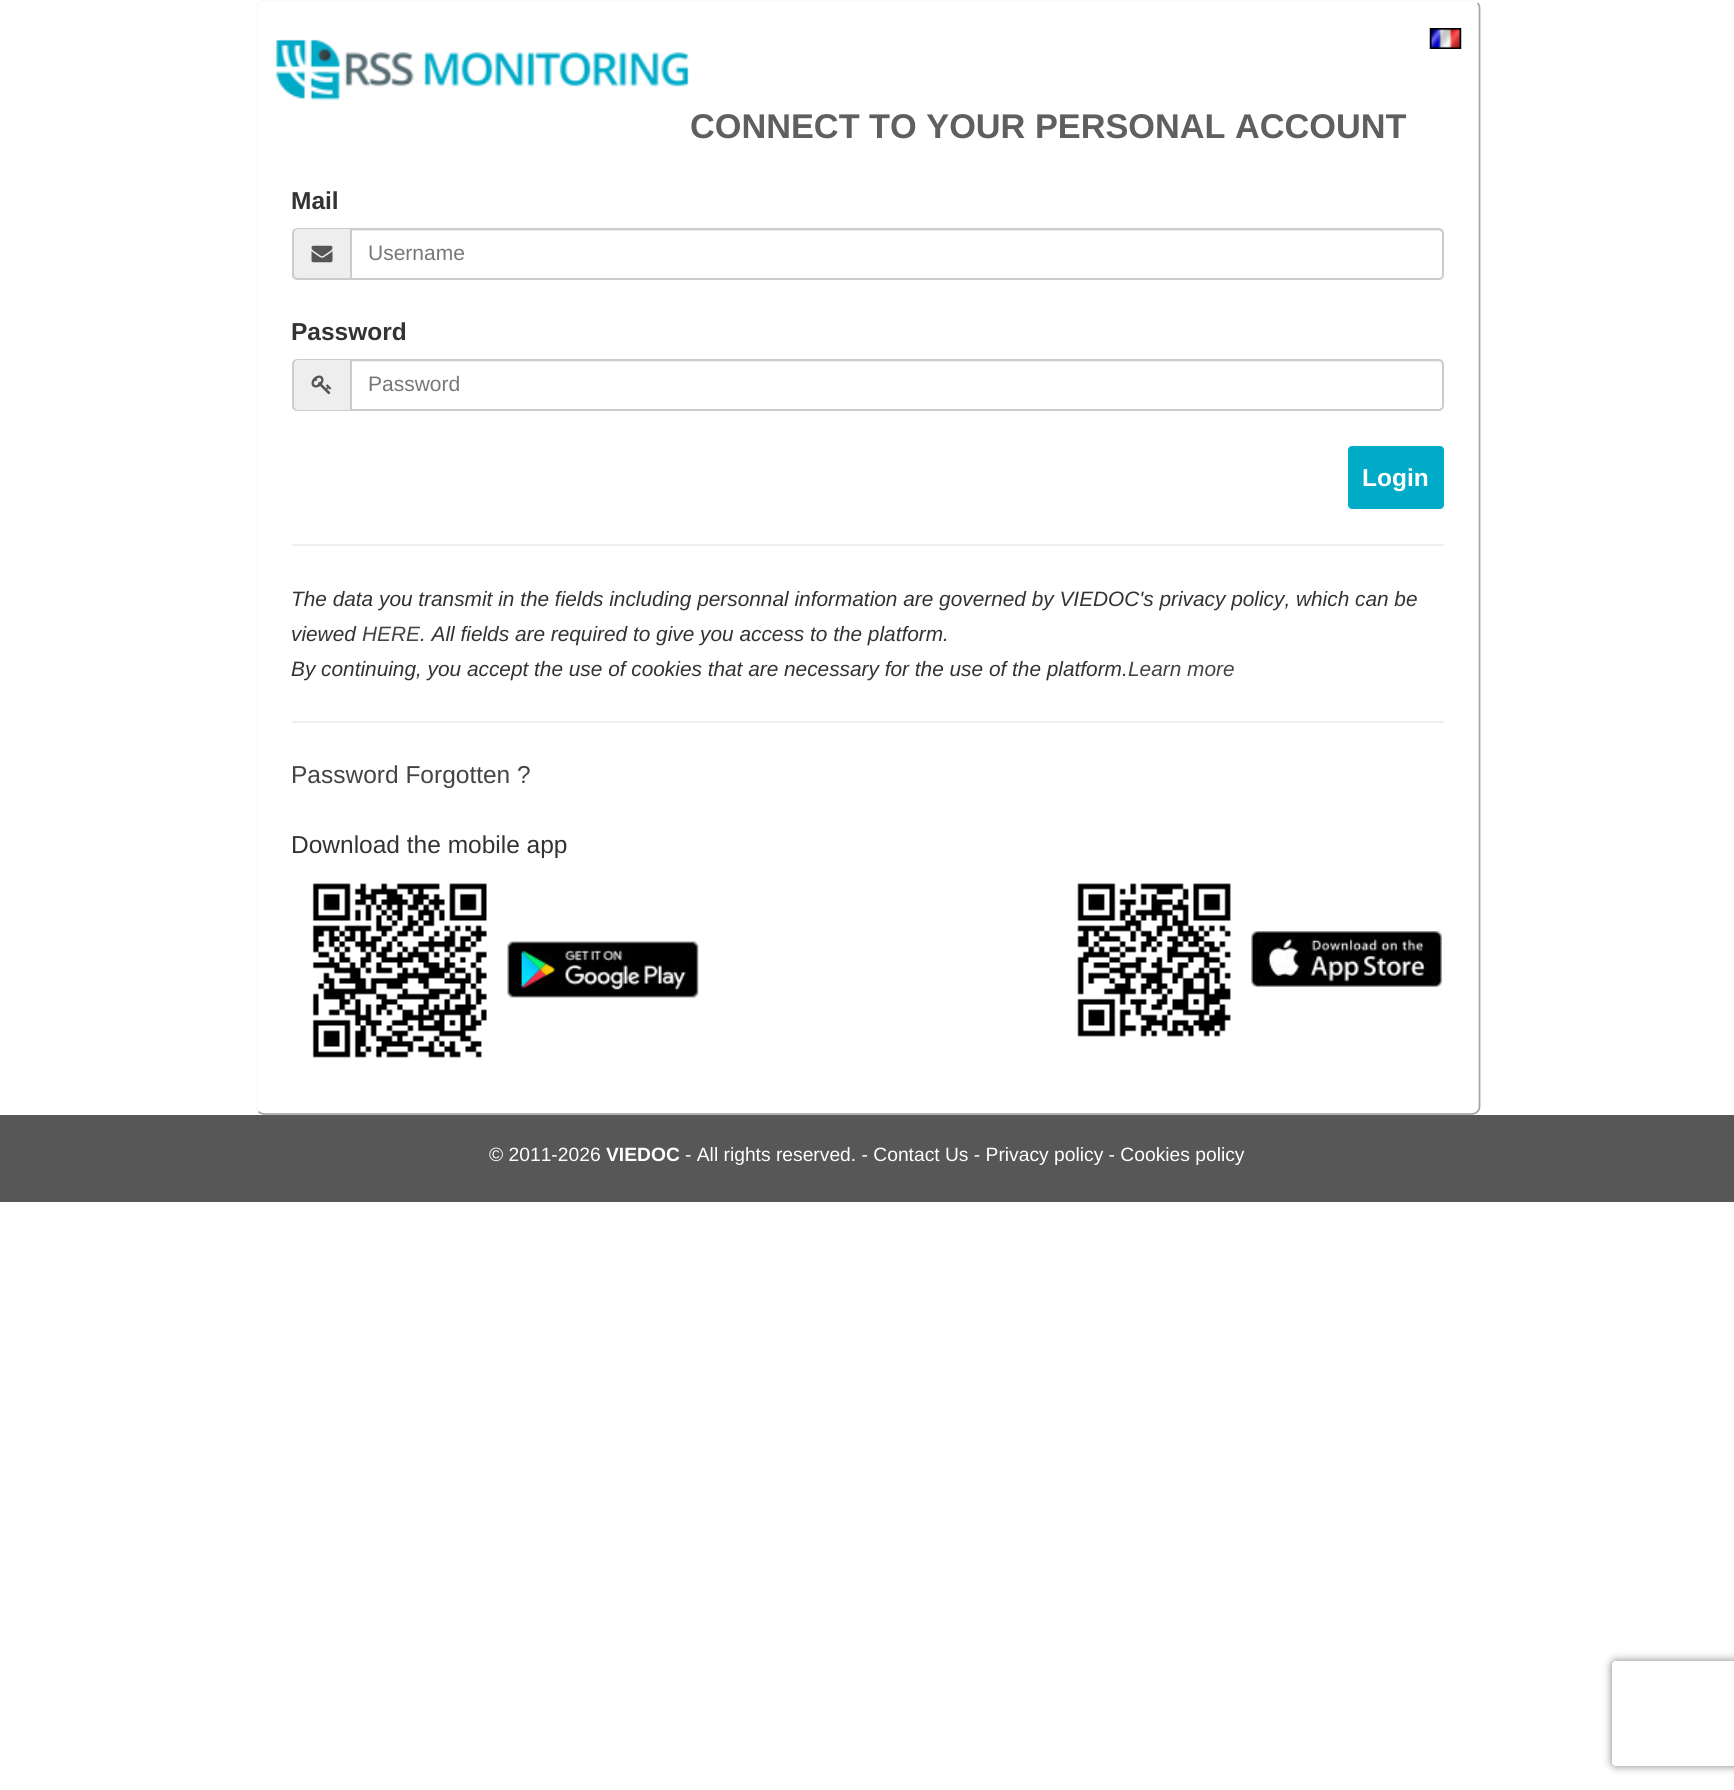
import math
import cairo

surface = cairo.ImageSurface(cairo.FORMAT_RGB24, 1734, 1790)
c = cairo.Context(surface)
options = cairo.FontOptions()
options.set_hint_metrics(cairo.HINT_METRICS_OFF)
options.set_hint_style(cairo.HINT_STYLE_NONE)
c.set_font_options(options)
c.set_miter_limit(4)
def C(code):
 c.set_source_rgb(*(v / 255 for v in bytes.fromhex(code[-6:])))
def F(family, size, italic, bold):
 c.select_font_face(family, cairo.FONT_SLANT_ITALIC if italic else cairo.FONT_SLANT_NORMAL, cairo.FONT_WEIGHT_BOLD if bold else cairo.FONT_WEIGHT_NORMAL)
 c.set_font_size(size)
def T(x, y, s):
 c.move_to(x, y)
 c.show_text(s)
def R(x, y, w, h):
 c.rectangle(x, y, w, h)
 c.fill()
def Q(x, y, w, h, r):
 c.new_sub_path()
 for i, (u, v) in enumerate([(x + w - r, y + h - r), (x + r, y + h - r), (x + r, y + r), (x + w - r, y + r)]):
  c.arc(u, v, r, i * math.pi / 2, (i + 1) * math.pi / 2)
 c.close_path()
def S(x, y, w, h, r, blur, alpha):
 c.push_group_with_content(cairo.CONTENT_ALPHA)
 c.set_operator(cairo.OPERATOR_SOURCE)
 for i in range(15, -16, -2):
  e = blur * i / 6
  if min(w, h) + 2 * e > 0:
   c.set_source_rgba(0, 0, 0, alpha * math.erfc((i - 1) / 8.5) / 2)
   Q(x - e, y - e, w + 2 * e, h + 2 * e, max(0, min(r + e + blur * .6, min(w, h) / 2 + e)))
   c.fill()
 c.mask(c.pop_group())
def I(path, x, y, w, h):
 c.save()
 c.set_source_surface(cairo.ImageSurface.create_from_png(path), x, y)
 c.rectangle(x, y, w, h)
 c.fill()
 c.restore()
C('ffffff')
c.paint()
c.new_path()
c.move_to(1477.5,3)
c.curve_to(1479,4.5,1479.5,6.5,1479.5,8.5)
c.line_to(1479.5,1106)
c.curve_to(1479.5,1108,1479,1110,1477.5,1111.5)
c.curve_to(1476,1113,1474,1114,1472,1114)
c.line_to(264,1114)
c.curve_to(262,1114,260,1113,258.5,1111.5)
C('a6a6a6')
c.set_line_width(1.8)
c.stroke()
c.new_path()
c.move_to(258.5,1111.5)
c.curve_to(257,1110,256.5,1108,256.5,1106)
c.line_to(256.5,9)
c.curve_to(256.5,6.5,257,4.5,258.5,3)
c.curve_to(260,1.5,262,1,264,1)
c.line_to(1472,1)
c.curve_to(1474,1,1476,1.5,1477.5,3)
C('fafafa')
c.stroke()
I('1.png',276,39,413,62)
I('2.png',1429,28,33,21)
F('Liberation Sans',34.3,0,1)
C('5f5f5f')
T(690,138,'CONNECT TO YOUR PERSONAL ACCOUNT')
F('Liberation Sans',24.5,0,1)
C('333333')
T(291,209,'Mail')
C('eeeeee')
c.new_path()
c.move_to(297,228)
c.line_to(350,228)
c.line_to(350,280)
c.line_to(297,280)
c.curve_to(294,280,292,278,292,275)
c.line_to(292,233)
c.curve_to(292,230,294,228,297,228)
c.close_path()
c.fill()
C('cccccc')
c.set_fill_rule(cairo.FILL_RULE_EVEN_ODD)
c.new_path()
c.move_to(298,228)
c.line_to(350,228)
c.line_to(350,280)
c.line_to(298,280)
c.curve_to(295,280,292,278,292,275)
c.line_to(292,233)
c.curve_to(292,230,295,228,298,228)
c.close_path()
c.move_to(298,229)
c.line_to(350,229)
c.line_to(350,278)
c.line_to(298,278)
c.curve_to(296,278,294,277,294,275)
c.line_to(294,233)
c.curve_to(294,231,296,229,298,229)
c.close_path()
c.fill()
I('3.png',311,245,22,18)
C('ececec')
c.set_fill_rule(cairo.FILL_RULE_WINDING)
c.new_path()
c.move_to(352,231)
c.line_to(1438,231)
c.curve_to(1440,231,1442,233,1442,234)
c.curve_to(1442,231,1441,229,1438,229)
c.line_to(352,229)
c.close_path()
c.fill()
c.new_path()
c.move_to(351,229)
c.line_to(1439,229)
c.curve_to(1441,229,1443,231,1443,233)
c.line_to(1443,275)
c.curve_to(1443,277,1441,279,1439,279)
c.line_to(351,279)
c.close_path()
C('cccccc')
c.set_line_width(2)
c.stroke()
F('Liberation Sans',21,0,0)
C('777777')
T(368,260,'Username')
F('Liberation Sans',24.5,0,1)
C('333333')
T(291,340,'Password')
C('eeeeee')
c.new_path()
c.move_to(297,359)
c.line_to(350,359)
c.line_to(350,411)
c.line_to(297,411)
c.curve_to(294,411,292,409,292,406)
c.line_to(292,364)
c.curve_to(292,361,294,359,297,359)
c.close_path()
c.fill()
C('cccccc')
c.set_fill_rule(cairo.FILL_RULE_EVEN_ODD)
c.new_path()
c.move_to(298,359)
c.line_to(350,359)
c.line_to(350,411)
c.line_to(298,411)
c.curve_to(295,411,292,409,292,406)
c.line_to(292,364)
c.curve_to(292,361,295,359,298,359)
c.close_path()
c.move_to(298,360)
c.line_to(350,360)
c.line_to(350,410)
c.line_to(298,410)
c.curve_to(296,410,294,408,294,406)
c.line_to(294,364)
c.curve_to(294,362,296,360,298,360)
c.close_path()
c.fill()
I('4.png',311,375,21,20)
C('ececec')
c.set_fill_rule(cairo.FILL_RULE_WINDING)
c.new_path()
c.move_to(352,362)
c.line_to(1438,362)
c.curve_to(1440,362,1442,364,1442,366)
c.curve_to(1442,363,1441,361,1438,361)
c.line_to(352,361)
c.close_path()
c.fill()
c.new_path()
c.move_to(351,360)
c.line_to(1439,360)
c.curve_to(1441,360,1443,362,1443,364)
c.line_to(1443,406)
c.curve_to(1443,408,1441,410,1439,410)
c.line_to(351,410)
c.close_path()
C('cccccc')
c.stroke()
F('Liberation Sans',21,0,0)
C('777777')
T(368,391,'Password')
C('00abc7')
Q(1349,447,94,61,3)
c.fill_preserve()
c.stroke()
F('Liberation Sans',24.5,0,1)
C('ffffff')
T(1362,486,'Login')
C('eeeeee')
R(292,544,1152,2)
F('Liberation Sans',20.82,1,0)
C('333333')
T(291,606,'The data you transmit in the fields including personnal information are governed by VIEDOC\'s privacy policy, which can be')
T(291,641,'viewed')
C('444444')
T(362,641,'HERE')
C('333333')
T(420,641,'. All fields are required to give you access to the platform.')
T(291,676,'By continuing, you accept the use of cookies that are necessary for the use of the platform.')
C('444444')
T(1128,676,'Learn more')
C('eeeeee')
R(292,721,1152,2)
F('Liberation Sans',24.5,0,0)
C('444444')
T(291,783,'Password Forgotten ?')
C('333333')
T(291,853,'Download the mobile app')
I('5.png',312,883,175,175)
I('6.png',507,941,192,57)
I('7.png',1077,883,154,154)
I('8.png',1251,931,191,56)
C('575757')
R(0,1115,1734,87)
F('Liberation Sans',19.25,0,0)
C('ffffff')
T(489,1161,'© 2011-2026')
F('Liberation Sans',19.25,0,1)
T(606,1161,'VIEDOC')
F('Liberation Sans',19.25,0,0)
T(685,1161,'- All rights reserved. - Contact Us - Privacy policy - Cookies policy')
c.save()
c.set_fill_rule(cairo.FILL_RULE_EVEN_ODD)
c.new_path()
c.move_to(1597,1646)
c.line_to(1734,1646)
c.line_to(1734,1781)
c.line_to(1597,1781)
c.close_path()
c.move_to(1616,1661)
c.line_to(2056,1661)
c.curve_to(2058,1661,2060,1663,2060,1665)
c.line_to(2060,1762)
c.curve_to(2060,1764,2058,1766,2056,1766)
c.line_to(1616,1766)
c.curve_to(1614,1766,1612,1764,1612,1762)
c.line_to(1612,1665)
c.curve_to(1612,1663,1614,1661,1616,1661)
c.close_path()
c.clip()
C('808080')
S(1612,1661,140,105,4,4.5,1)
c.restore()
surface.write_to_png('o.png')
